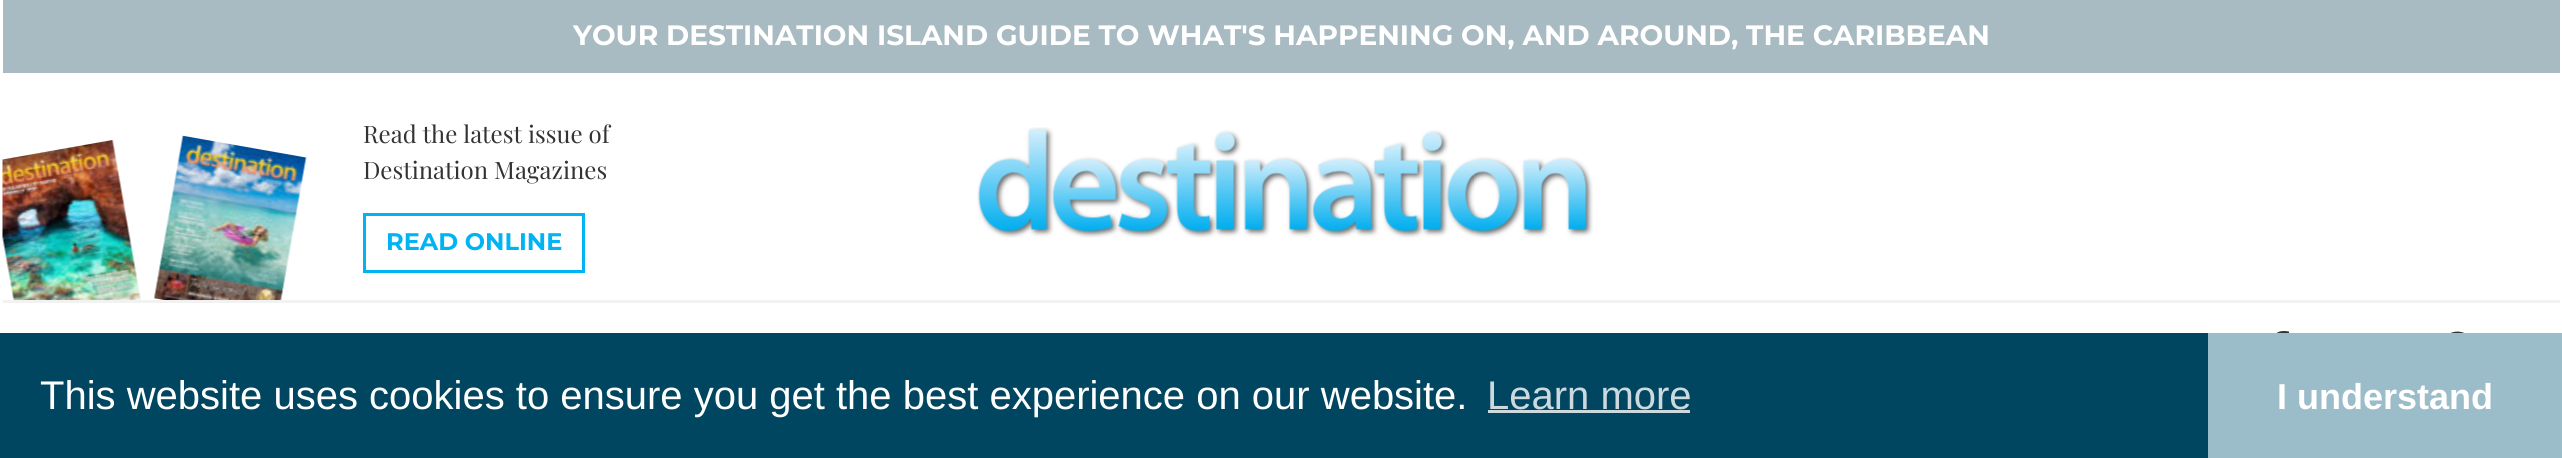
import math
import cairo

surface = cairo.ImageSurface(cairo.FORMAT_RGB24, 2562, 458)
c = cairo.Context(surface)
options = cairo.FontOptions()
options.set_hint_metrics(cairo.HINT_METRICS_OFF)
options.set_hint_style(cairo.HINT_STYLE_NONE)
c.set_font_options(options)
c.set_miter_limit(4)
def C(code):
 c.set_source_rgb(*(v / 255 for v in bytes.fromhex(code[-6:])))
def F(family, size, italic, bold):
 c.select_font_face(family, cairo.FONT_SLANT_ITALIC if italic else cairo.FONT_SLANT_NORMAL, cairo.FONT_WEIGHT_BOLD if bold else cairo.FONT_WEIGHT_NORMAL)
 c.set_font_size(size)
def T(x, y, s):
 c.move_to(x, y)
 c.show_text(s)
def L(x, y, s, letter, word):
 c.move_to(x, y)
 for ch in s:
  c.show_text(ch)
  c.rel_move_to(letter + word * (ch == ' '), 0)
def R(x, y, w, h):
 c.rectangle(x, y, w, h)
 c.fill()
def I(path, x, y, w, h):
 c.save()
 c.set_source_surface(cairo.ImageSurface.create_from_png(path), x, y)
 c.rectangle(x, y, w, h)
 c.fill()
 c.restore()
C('ffffff')
c.paint()
C('a8bbc2')
R(3,0,2557,73)
F('Montserrat',28,0,1)
C('ffffff')
L(573,45,'YOUR DESTINATION ISLAND GUIDE TO WHAT\'S HAPPENING ON, AND AROUND, THE CARIBBEAN',0,-.1)
I('1.png',2,140,139,160)
I('2.png',153,135,154,165)
F('Playfair Display',24,0,0)
C('333333')
T(363,143,'Read the latest issue of')
T(363,179,'Destination Magazines')
c.rectangle(364.5,214.5,219,57)
C('00b4f4')
c.set_line_width(3)
c.stroke()
F('Montserrat',24,0,1)
T(386,250,'READ ONLINE')
I('3.png',977,127,616,111)
I('4.png',2276,331,13,2)
I('5.png',2450,331,15,2)
C('f2f2f2')
R(3,300,2557,3)
C('004661')
R(0,333,2208,125)
F('Liberation Sans',40,0,0)
C('ffffff')
T(40,409,'This website uses cookies to ensure you get the best experience on our website.')
C('ccdadf')
T(1487,409,'Learn more')
R(1488,410,202,3)
C('9bbdca')
R(2208,333,354,125)
F('Liberation Sans',36,0,1)
C('ffffff')
T(2277,409,'I understand')
surface.write_to_png('o.png')
